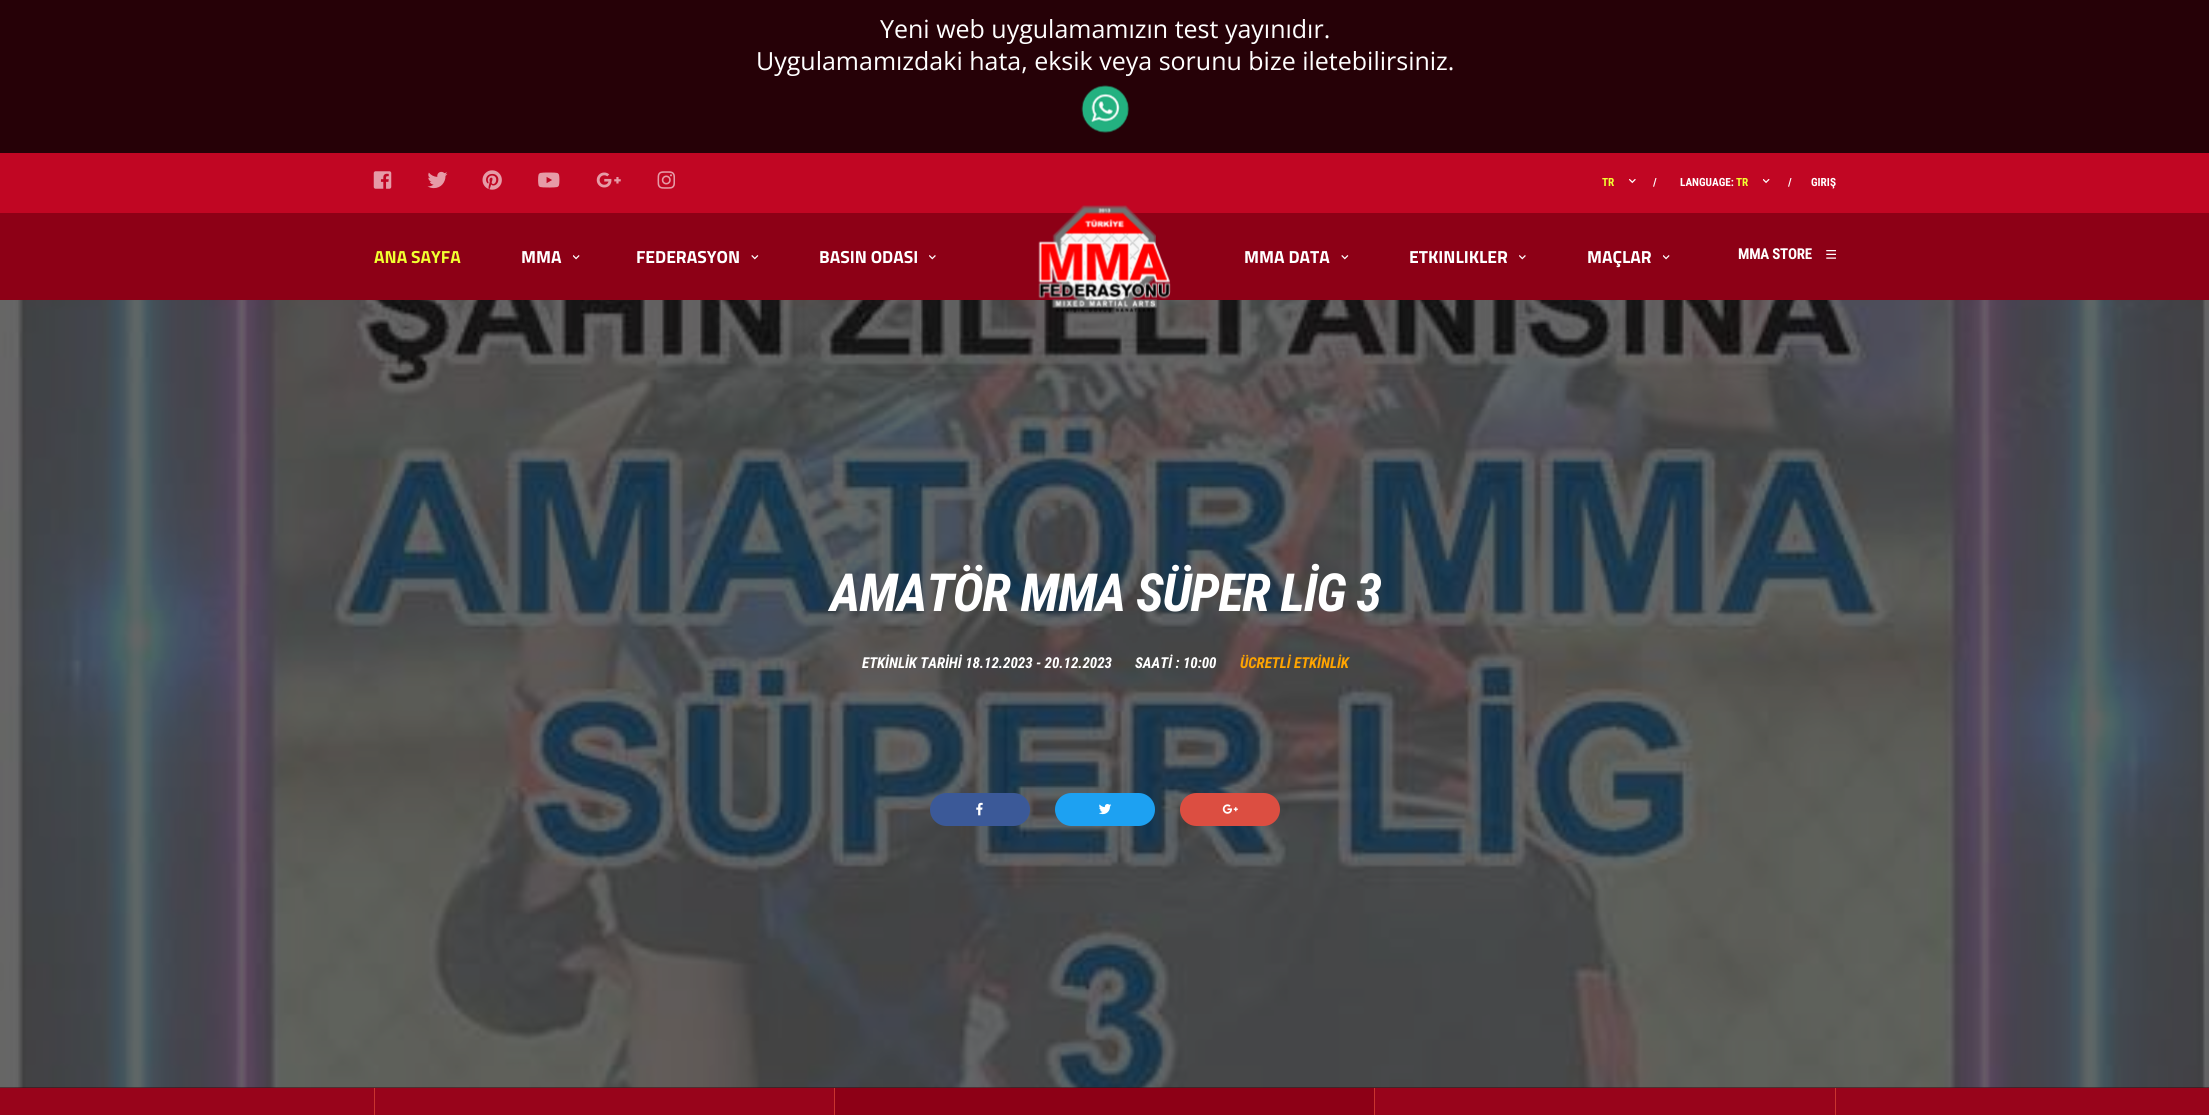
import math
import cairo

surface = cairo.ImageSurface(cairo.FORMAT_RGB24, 2209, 1115)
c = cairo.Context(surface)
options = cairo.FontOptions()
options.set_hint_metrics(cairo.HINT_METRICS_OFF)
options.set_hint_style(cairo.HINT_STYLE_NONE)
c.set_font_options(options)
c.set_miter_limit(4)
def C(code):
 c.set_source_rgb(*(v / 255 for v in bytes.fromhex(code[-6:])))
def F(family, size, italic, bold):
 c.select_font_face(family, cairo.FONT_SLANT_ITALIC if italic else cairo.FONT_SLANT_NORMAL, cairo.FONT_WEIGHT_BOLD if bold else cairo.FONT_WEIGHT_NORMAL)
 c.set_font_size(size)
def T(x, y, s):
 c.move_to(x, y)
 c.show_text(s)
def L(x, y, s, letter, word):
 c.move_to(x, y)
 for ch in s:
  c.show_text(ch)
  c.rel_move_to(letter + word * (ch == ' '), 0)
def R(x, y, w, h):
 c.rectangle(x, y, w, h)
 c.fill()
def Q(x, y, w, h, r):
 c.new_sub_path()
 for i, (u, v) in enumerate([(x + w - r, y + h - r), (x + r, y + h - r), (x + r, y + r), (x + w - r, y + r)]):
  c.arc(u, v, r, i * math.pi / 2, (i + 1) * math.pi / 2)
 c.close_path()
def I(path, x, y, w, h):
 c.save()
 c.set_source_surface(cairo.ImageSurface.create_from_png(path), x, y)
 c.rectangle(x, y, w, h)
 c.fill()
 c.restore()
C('98041b')
c.paint()
C('3d020b')
R(0,1087,2209,1)
C('260107')
R(0,0,2209,153)
F('Open Sans',25,0,0)
C('ffffff')
T(880,38,'Yeni web uygulamamızın test yayınıdır.')
T(756,70,'Uygulamamızdaki hata, eksik veya sorunu bize iletebilirsiniz.')
I('1.png',1081,85,48,48)
C('8d0016')
R(0,213,2209,87)
C('c10623')
R(0,153,2209,60)
I('2.png',373,171,19,18)
I('3.png',427,171,21,18)
I('4.png',482,170,20,20)
I('5.png',538,172,22,16)
I('6.png',596,172,25,16)
I('7.png',657,171,18,18)
F('Roboto Condensed',11.25,0,1)
C('f1ff31')
T(1602,186,'TR')
I('8.png',1629,179,7,5)
C('ffffff')
T(1653,186,'/')
T(1680,186,'LANGUAGE:')
C('f1ff31')
T(1736,186,'TR')
I('9.png',1763,179,7,5)
C('ffffff')
T(1788,186,'/')
T(1811,186,'GIRIŞ')
F('Titillium Web',17.5,0,1)
C('f1ff31')
T(374,263,'ANA SAYFA')
C('ffffff')
T(521,263,'MMA')
I('10.png',573,255,7,5)
T(636,263,'FEDERASYON')
I('11.png',751,255,8,5)
T(819,263,'BASIN ODASI')
I('12.png',929,255,7,5)
I('15.png',0,300,2209,788)
I('13.png',1038,205,133,108)
T(1244,263,'MMA DATA')
I('11.png',1341,255,8,5)
T(1409,263,'ETKINLIKLER')
I('12.png',1519,255,7,5)
T(1587,263,'MAÇLAR')
I('10.png',1663,255,7,5)
F('Roboto Condensed',15,0,1)
L(1738,259,'MMA STORE',-.25,0)
I('14.png',1826,250,10,9)
F('Roboto Condensed',52.5,1,1)
L(830,611,'AMATÖR MMA SÜPER LİG 3',-1.05,0)
F('Roboto Condensed',15,1,1)
T(862,668,'ETKİNLİK TARİHİ 18.12.2023 - 20.12.2023')
T(1135,668,'SAATİ : 10:00')
C('ffa500')
T(1240,668,'ÜCRETLİ ETKİNLİK')
C('3b5998')
Q(930,793,100,33,16.5)
c.fill()
I('16.png',976,802,7,14)
C('1da1f2')
Q(1055,793,100,33,16.5)
c.fill()
I('17.png',1099,804,13,11)
C('dc4e41')
Q(1180,793,100,33,16.5)
c.fill()
I('18.png',1222,804,16,10)
C('c9342f')
R(1835,1088,1,27)
R(374,1088,1,27)
C('8d0016')
R(835,1088,539,27)
C('c9342f')
R(834,1088,1,27)
R(1374,1088,1,27)
surface.write_to_png('o.png')
